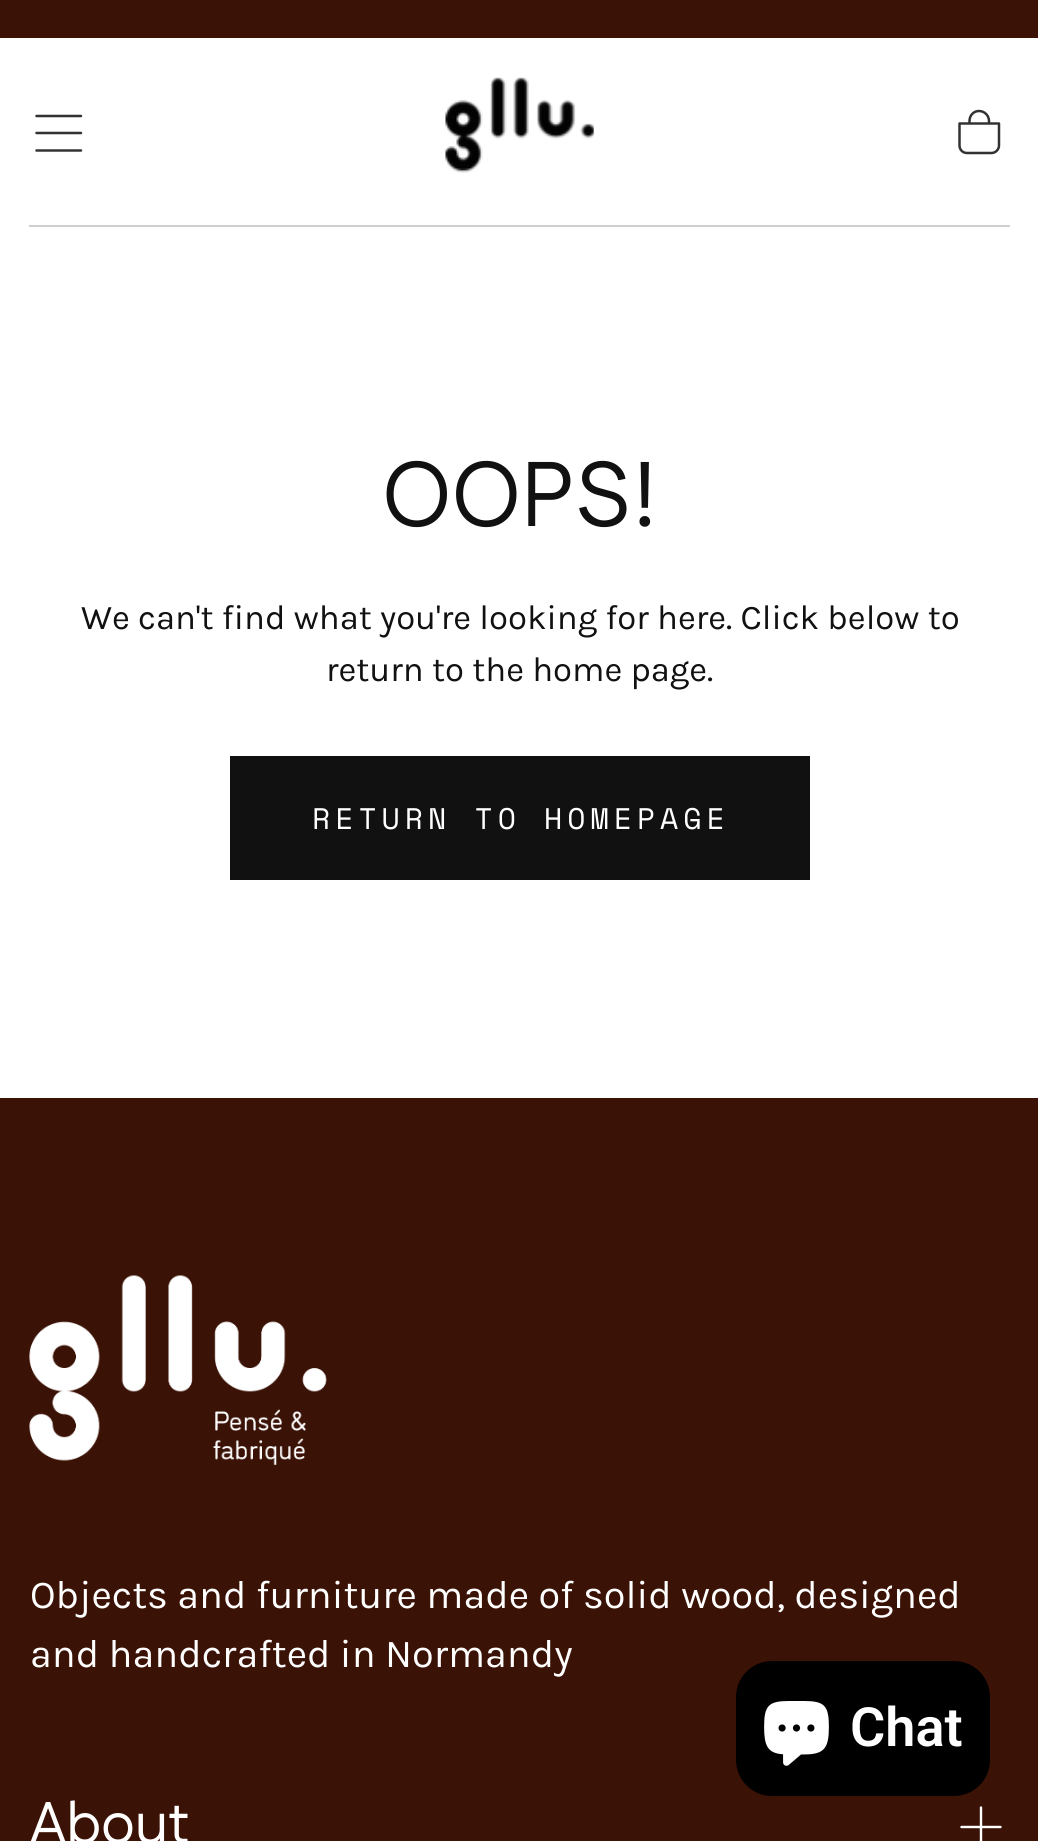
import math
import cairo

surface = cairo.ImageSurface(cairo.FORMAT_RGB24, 1038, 1841)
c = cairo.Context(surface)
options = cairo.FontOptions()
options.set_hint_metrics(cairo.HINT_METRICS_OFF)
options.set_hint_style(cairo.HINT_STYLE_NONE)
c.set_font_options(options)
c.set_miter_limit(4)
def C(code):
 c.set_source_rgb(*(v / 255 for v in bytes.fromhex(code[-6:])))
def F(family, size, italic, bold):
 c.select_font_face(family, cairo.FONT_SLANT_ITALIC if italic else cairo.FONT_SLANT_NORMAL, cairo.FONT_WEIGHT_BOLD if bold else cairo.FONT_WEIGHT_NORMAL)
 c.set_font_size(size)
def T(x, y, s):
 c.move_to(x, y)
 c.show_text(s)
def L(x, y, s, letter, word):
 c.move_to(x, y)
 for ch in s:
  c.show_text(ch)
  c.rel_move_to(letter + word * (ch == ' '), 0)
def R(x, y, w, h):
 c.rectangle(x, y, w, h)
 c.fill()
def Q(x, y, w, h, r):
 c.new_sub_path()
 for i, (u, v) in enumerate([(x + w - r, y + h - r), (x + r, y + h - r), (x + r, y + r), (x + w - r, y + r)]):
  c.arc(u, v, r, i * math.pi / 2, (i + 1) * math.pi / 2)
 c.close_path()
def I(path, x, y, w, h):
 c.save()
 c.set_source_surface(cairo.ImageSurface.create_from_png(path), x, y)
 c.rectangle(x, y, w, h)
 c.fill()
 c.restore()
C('ffffff')
c.paint()
C('3b1206')
R(0,0,1038,38)
c.new_path()
c.move_to(36.5,133)
c.line_to(81,133)
c.move_to(36.5,116)
c.line_to(81,116)
c.move_to(36.5,150.5)
c.line_to(81,150.5)
C('333232')
c.set_line_width(2.5)
c.set_line_cap(cairo.LINE_CAP_ROUND)
c.stroke()
I('1.png',445,77,149,96)
c.new_path()
c.move_to(959.5,123.5)
c.line_to(999,123.5)
c.line_to(999,145.5)
c.curve_to(999,149.5,995.5,153,991.5,153)
c.line_to(967,153)
c.curve_to(962.5,153,959.5,149.5,959.5,145.5)
c.close_path()
c.move_to(969.5,123.5)
c.line_to(969.5,121)
c.curve_to(969.5,115.5,973.5,111,979,111)
c.curve_to(984.5,111,989,115.5,989,121)
c.line_to(989,123.5)
c.set_line_cap(cairo.LINE_CAP_BUTT)
c.set_line_join(cairo.LINE_JOIN_ROUND)
c.stroke()
C('cfcfcf')
R(29,225,981,2)
F('Fustat',91.5,0,0)
C('111111')
T(382,526,'OOPS!')
F('Karla',34.65,0,0)
T(81,629,'We can\'t find what you\'re looking for here. Click below to')
T(326,681,'return to the home page.')
R(230,756,580,124)
F('Space Mono',29.75,0,0)
C('ffffff')
L(312,829,'RETURN TO HOMEPAGE',5,0)
C('3b1206')
R(0,1098,1038,743)
I('2.png',29,1275,298,190)
F('Karla',39.6,0,0)
C('ffffff')
T(30,1608,'Objects and furniture made of solid wood, designed')
T(30,1667,'and handcrafted in Normandy')
F('Fustat',58.5,0,0)
T(30,1843,'About')
c.new_path()
c.move_to(981,1807.5)
c.line_to(981,1827)
c.move_to(981,1827)
c.line_to(981,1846.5)
c.move_to(981,1827)
c.line_to(961.5,1827)
c.move_to(981,1827)
c.line_to(1000.5,1827)
c.set_line_width(2.4)
c.set_line_cap(cairo.LINE_CAP_ROUND)
c.set_line_join(cairo.LINE_JOIN_MITER)
c.stroke()
C('000000')
Q(736,1661,254,135,36)
c.fill()
I('3.png',764,1701,65,65)
F('Roboto SemiBold',54,0,0)
C('ffffff')
T(850,1746,'Chat')
surface.write_to_png('o.png')
